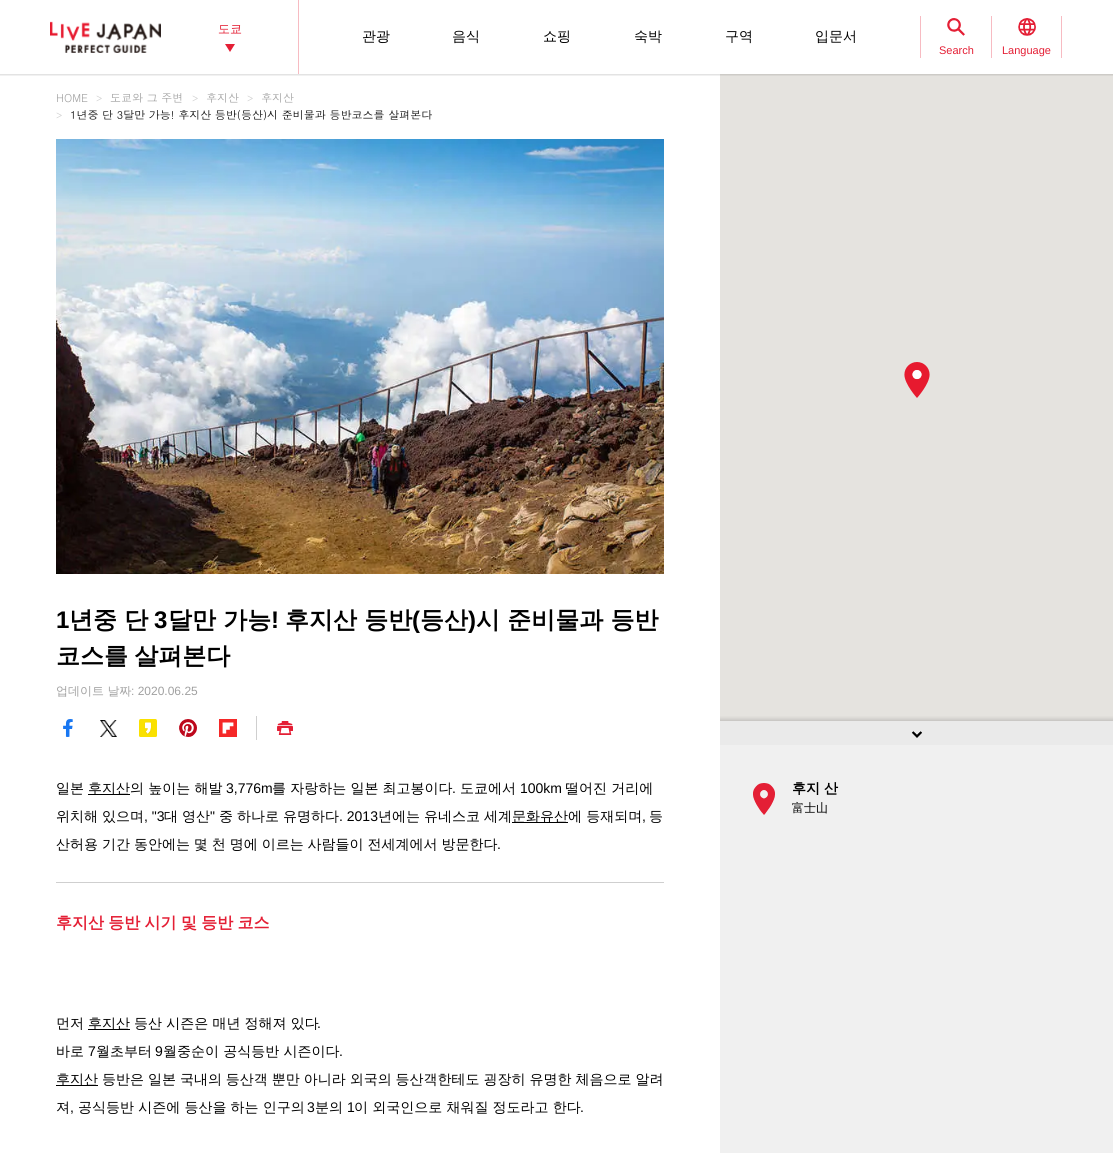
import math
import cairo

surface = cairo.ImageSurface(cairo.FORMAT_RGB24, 1113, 1153)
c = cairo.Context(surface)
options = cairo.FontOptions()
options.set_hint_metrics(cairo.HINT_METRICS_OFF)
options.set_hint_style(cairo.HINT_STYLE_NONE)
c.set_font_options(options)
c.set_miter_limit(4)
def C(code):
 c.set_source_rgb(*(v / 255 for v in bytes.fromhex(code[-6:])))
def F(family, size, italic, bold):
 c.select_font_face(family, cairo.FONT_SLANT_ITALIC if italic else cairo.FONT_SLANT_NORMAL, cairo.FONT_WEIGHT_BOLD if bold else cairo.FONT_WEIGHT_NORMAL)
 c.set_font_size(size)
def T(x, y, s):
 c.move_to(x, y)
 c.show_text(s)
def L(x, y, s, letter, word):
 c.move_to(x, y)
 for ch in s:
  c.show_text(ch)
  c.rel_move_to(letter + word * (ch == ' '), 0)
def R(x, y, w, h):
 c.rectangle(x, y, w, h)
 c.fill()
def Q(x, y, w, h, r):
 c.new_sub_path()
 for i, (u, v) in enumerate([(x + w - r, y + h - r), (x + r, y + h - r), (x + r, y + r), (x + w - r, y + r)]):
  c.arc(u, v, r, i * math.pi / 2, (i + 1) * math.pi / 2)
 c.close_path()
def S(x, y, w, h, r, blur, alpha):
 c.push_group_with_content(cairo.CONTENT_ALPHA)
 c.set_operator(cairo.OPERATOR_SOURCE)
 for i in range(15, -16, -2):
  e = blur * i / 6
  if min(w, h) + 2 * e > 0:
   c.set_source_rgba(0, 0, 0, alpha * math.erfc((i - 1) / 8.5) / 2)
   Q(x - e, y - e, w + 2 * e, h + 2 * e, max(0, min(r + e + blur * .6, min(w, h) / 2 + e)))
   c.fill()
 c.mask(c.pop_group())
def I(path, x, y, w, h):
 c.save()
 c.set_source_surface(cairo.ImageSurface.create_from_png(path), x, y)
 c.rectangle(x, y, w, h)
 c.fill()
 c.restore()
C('ffffff')
c.paint()
C('e5e3df')
R(720,74,393,647)
c.save()
c.rectangle(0,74,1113,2)
c.clip()
C('323232')
S(-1,-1,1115,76,0,1,.2)
c.restore()
I('1.png',50,21,111,32)
F('WenQuanYi Zen Hei Medium',12,0,0)
C('e41f35')
T(218,33,'도쿄')
c.new_path()
c.move_to(225,44)
c.line_to(235,44)
c.line_to(230,52)
c.close_path()
c.fill()
C('f7bbc2')
R(298,0,1,74)
F('WenQuanYi Zen Hei Medium',14,0,0)
C('000000')
T(362,41,'관광')
T(452,41,'음식')
T(543,41,'쇼핑')
T(634,41,'숙박')
T(725,41,'구역')
T(815,41,'입문서')
C('f7bbc2')
R(920,16,1,42)
I('2.png',947,18,18,18)
F('Liberation Sans',11,0,0)
C('e41f35')
T(939,54,'Search')
C('f7bbc2')
R(1061,16,1,42)
R(991,16,1,42)
I('3.png',1018,18,18,18)
C('e41f35')
T(1002,54,'Language')
F('Dotum',11,0,0)
C('a0a0a0')
T(56,102,'HOME')
F('Dotum',10,0,0)
C('cccccc')
T(96,102,'>')
F('Dotum',11,0,0)
C('a0a0a0')
T(110,102,'도쿄와 그 주변')
F('Dotum',10,0,0)
C('cccccc')
T(192,102,'>')
F('Dotum',11,0,0)
C('a0a0a0')
T(206,102,'후지산')
F('Dotum',10,0,0)
C('cccccc')
T(247,102,'>')
F('Dotum',11,0,0)
C('a0a0a0')
T(261,102,'후지산')
F('Dotum',10,0,0)
C('cccccc')
T(56,119,'>')
F('Dotum',11,0,0)
C('000000')
T(70,119,'1년중 단 3달만 가능! 후지산 등반(등산)시 준비물과 등반코스를 살펴본다')
I('4.png',56,139,608,435)
F('Liberation Sans',24,0,1)
T(56,628,'1')
F('WenQuanYi Zen Hei',24,0,1)
T(69,628,'년중 단')
F('Liberation Sans',24,0,1)
T(154,628,'3')
F('WenQuanYi Zen Hei',24,0,1)
T(168,628,'달만 가능')
F('Liberation Sans',24,0,1)
T(271,628,'!')
F('WenQuanYi Zen Hei',24,0,1)
T(285,628,'후지산 등반')
F('Liberation Sans',24,0,1)
T(412,628,'(')
F('WenQuanYi Zen Hei',24,0,1)
T(420,628,'등산')
F('Liberation Sans',24,0,1)
T(468,628,')')
F('WenQuanYi Zen Hei',24,0,1)
T(476,628,'시 준비물과 등반')
L(56,664,'코스를 살펴본다',0,-1)
F('WenQuanYi Zen Hei Medium',12,0,0)
C('a0a0a0')
T(56,695,'업데이트 날짜')
F('Liberation Sans',12,0,0)
T(131,695,': 2020.06.25')
C('cfcfcf')
R(256,716,1,24)
I('5.png',63,719,10,18)
I('6.png',100,720,17,17)
I('7.png',139,719,18,18)
I('8.png',179,719,18,18)
I('9.png',219,719,18,18)
I('10.png',277,721,16,14)
F('WenQuanYi Zen Hei Medium',14,0,0)
C('000000')
T(56,793,'일본')
R(88,794,42,1)
T(88,793,'후지산')
T(130,793,'의 높이는 해발')
F('Liberation Sans',14,0,0)
T(226,793,'3,776m')
F('WenQuanYi Zen Hei Medium',14,0,0)
T(272,793,'를 자랑하는 일본 최고봉이다')
F('Liberation Sans',14,0,0)
T(452,793,'.')
F('WenQuanYi Zen Hei Medium',14,0,0)
T(460,793,'도쿄에서')
F('Liberation Sans',14,0,0)
T(520,793,'100km')
F('WenQuanYi Zen Hei Medium',14,0,0)
T(565,793,'떨어진 거리에')
T(56,821,'위치해')
T(102,821,'있으며')
F('Liberation Sans',14,0,0)
T(144,821,', "3')
F('WenQuanYi Zen Hei Medium',14,0,0)
T(164,821,'대')
T(182,821,'영산')
F('Liberation Sans',14,0,0)
T(210,821,'"')
F('WenQuanYi Zen Hei Medium',14,0,0)
T(219,821,'중')
T(237,821,'하나로')
T(283,821,'유명하다')
F('Liberation Sans',14,0,0)
T(339,821,'. 2013')
F('WenQuanYi Zen Hei Medium',14,0,0)
T(378,821,'년에는')
T(424,821,'유네스코')
T(484,821,'세계')
R(512,822,56,1)
T(512,821,'문화유산')
T(568,821,'에 등재되며')
F('Liberation Sans',14,0,0)
T(642,821,',')
F('WenQuanYi Zen Hei Medium',14,0,0)
T(649,821,'등')
L(56,849,'산허용 기간 동안에는 몇 천 명에 이르는 사람들이 전세계에서 방문한다',0,-.25)
F('Liberation Sans',14,0,0)
T(497,849,'.')
C('cfcfcf')
R(56,882,608,1)
F('WenQuanYi Zen Hei',16,0,1)
C('e41f35')
L(56,928,'후지산 등반 시기 및 등반 코스',0,-.5)
F('WenQuanYi Zen Hei Medium',14,0,0)
C('000000')
T(56,1028,'먼저')
R(88,1029,42,1)
T(88,1028,'후지산')
T(134,1028,'등산 시즌은 매년 정해져 있다')
F('Liberation Sans',14,0,0)
T(317,1028,'.')
F('WenQuanYi Zen Hei Medium',14,0,0)
T(56,1056,'바로')
F('Liberation Sans',14,0,0)
T(88,1056,'7')
F('WenQuanYi Zen Hei Medium',14,0,0)
T(96,1056,'월초부터')
F('Liberation Sans',14,0,0)
T(155,1056,'9')
F('WenQuanYi Zen Hei Medium',14,0,0)
T(163,1056,'월중순이 공식등반 시즌이다')
F('Liberation Sans',14,0,0)
T(339,1056,'.')
R(56,1085,42,1)
F('WenQuanYi Zen Hei Medium',14,0,0)
T(56,1084,'후지산')
L(102,1084,'등반은 일본 국내의 등산객 뿐만 아니라 외국의 등산객한테도 굉장히 유명한 체음으로 알려',0,-.25)
T(56,1112,'져')
F('Liberation Sans',14,0,0)
T(70,1112,',')
F('WenQuanYi Zen Hei Medium',14,0,0)
T(78,1112,'공식등반 시즌에 등산을 하는 인구의')
F('Liberation Sans',14,0,0)
T(307,1112,'3')
F('WenQuanYi Zen Hei Medium',14,0,0)
T(315,1112,'분의')
F('Liberation Sans',14,0,0)
T(347,1112,'1')
F('WenQuanYi Zen Hei Medium',14,0,0)
T(354,1112,'이 외국인으로 채워질 정도라고 한다')
F('Liberation Sans',14,0,0)
T(580,1112,'.')
C('f0f0f0')
R(720,745,393,408)
I('11.png',904,362,26,36)
c.save()
c.rectangle(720,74,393,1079)
c.clip()
c.rectangle(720,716,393,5)
c.clip()
C('323232')
S(718,719,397,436,0,2,.2)
c.restore()
C('eaeaea')
R(720,721,393,24)
I('12.png',911,731,11,7)
I('13.png',753,783,22,32)
F('WenQuanYi Zen Hei',14,0,1)
C('000000')
L(792,793,'후지 산',0,-.25)
F('WenQuanYi Zen Hei Medium',12,0,0)
T(792,812,'富士山')
surface.write_to_png('o.png')
